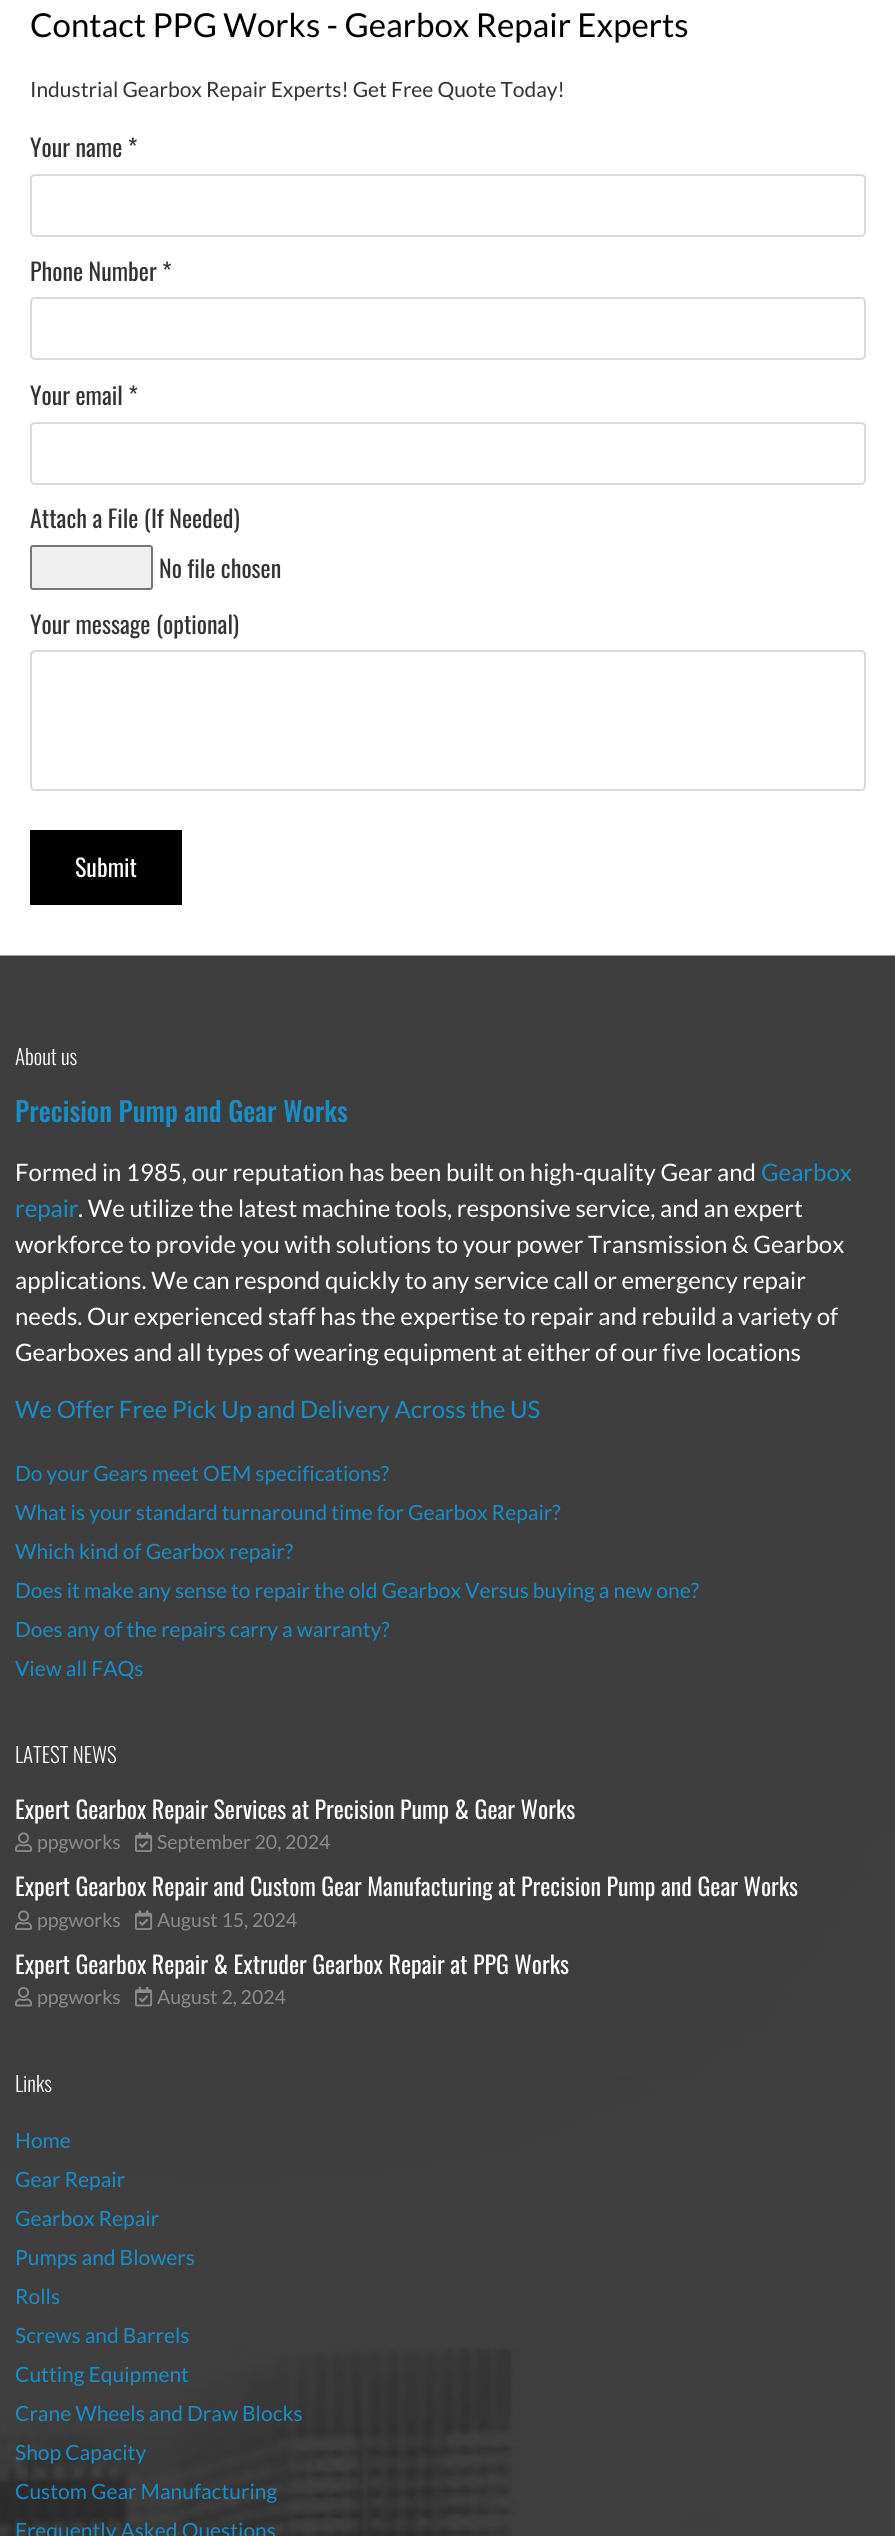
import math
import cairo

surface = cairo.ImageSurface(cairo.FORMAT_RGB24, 895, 2536)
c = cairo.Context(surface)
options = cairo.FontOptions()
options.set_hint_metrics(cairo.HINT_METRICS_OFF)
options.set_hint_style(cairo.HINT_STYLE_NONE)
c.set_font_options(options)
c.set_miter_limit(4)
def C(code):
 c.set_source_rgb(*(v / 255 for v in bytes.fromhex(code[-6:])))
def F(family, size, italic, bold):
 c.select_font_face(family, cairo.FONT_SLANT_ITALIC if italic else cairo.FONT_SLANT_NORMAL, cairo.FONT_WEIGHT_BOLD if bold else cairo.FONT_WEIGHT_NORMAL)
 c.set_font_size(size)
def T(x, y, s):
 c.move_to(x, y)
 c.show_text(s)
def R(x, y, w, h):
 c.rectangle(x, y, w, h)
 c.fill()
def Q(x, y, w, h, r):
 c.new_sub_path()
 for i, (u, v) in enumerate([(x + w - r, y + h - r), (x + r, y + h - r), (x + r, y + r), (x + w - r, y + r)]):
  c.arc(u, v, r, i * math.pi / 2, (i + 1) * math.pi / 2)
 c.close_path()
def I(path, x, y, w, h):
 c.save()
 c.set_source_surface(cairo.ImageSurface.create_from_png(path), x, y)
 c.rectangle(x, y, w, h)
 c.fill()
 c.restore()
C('ffffff')
c.paint()
F('Lato',33,0,0)
C('000000')
T(30,37,'Contact PPG Works - Gearbox Repair Experts')
F('Lato',21,0,0)
C('333333')
T(30,97,'Industrial Gearbox Repair Experts! Get Free Quote Today!')
F('Oswald',24,0,0)
T(30,157,'Your name *')
Q(31,175,834,61,4)
C('dadada')
c.stroke()
C('333333')
T(30,281,'Phone Number *')
Q(31,298,834,61,4)
C('dadada')
c.stroke()
C('333333')
T(30,405,'Your email *')
Q(31,423,834,61,4)
C('dadada')
c.stroke()
C('333333')
T(30,528,'Attach a File (If Needed)')
C('efefef')
Q(31,546,121,43,2)
c.fill_preserve()
C('767676')
c.stroke()
C('333333')
T(159,578,'No file chosen')
T(30,634,'Your message (optional)')
Q(31,651,834,139,4)
C('dadada')
c.stroke()
C('000000')
R(30,830,152,75)
C('ffffff')
T(75,877,'Submit')
I('1.png',0,955,895,1581)
F('Oswald Light',21,0,0)
T(15,1065,'About us')
F('Oswald Medium',27,0,0)
C('198dc7')
T(15,1122,'Precision Pump and Gear Works')
F('Lato',24,0,0)
C('ffffff')
T(15,1181,'Formed in 1985, our reputation has been built on high-quality Gear and')
C('198dc7')
T(761,1181,'Gearbox')
T(15,1217,'repair')
C('ffffff')
T(78,1217,'. We utilize the latest machine tools, responsive service, and an expert')
T(15,1253,'workforce to provide you with solutions to your power Transmission & Gearbox')
T(15,1289,'applications. We can respond quickly to any service call or emergency repair')
T(15,1325,'needs. Our experienced staff has the expertise to repair and rebuild a variety of')
T(15,1361,'Gearboxes and all types of wearing equipment at either of our five locations')
C('198dc7')
T(15,1418,'We Offer Free Pick Up and Delivery Across the US')
F('Lato',21,0,0)
T(15,1481,'Do your Gears meet OEM specifications?')
T(15,1520,'What is your standard turnaround time for Gearbox Repair?')
T(15,1559,'Which kind of Gearbox repair?')
T(15,1598,'Does it make any sense to repair the old Gearbox Versus buying a new one?')
T(15,1637,'Does any of the repairs carry a warranty?')
T(15,1676,'View all FAQs')
F('Oswald Light',21,0,0)
C('ffffff')
T(15,1763,'LATEST NEWS')
F('Oswald',24,0,0)
T(15,1819,'Expert Gearbox Repair Services at Precision Pump & Gear Works')
I('2.png',15,1832,18,20)
F('Lato',19.5,0,0)
C('8c8c8c')
T(37,1849,'ppgworks')
I('3.png',135,1832,18,20)
T(157,1849,'September 20, 2024')
F('Oswald',24,0,0)
C('ffffff')
T(15,1896,'Expert Gearbox Repair and Custom Gear Manufacturing at Precision Pump and Gear Works')
I('2.png',15,1910,18,20)
F('Lato',19.5,0,0)
C('8c8c8c')
T(37,1927,'ppgworks')
I('3.png',135,1910,18,20)
T(157,1927,'August 15, 2024')
F('Oswald',24,0,0)
C('ffffff')
T(15,1974,'Expert Gearbox Repair & Extruder Gearbox Repair at PPG Works')
I('4.png',15,1987,17,20)
F('Lato',19.5,0,0)
C('8c8c8c')
T(37,2004,'ppgworks')
I('5.png',135,1986,18,21)
T(157,2004,'August 2, 2024')
F('Oswald Light',21,0,0)
C('ffffff')
T(15,2092,'Links')
F('Lato',21,0,0)
C('198dc7')
T(15,2148,'Home')
T(15,2187,'Gear Repair')
T(15,2226,'Gearbox Repair')
T(15,2265,'Pumps and Blowers')
T(15,2304,'Rolls')
T(15,2343,'Screws and Barrels')
T(15,2382,'Cutting Equipment')
T(15,2421,'Crane Wheels and Draw Blocks')
T(15,2460,'Shop Capacity')
T(15,2499,'Custom Gear Manufacturing')
T(15,2538,'Frequently Asked Questions')
surface.write_to_png('o.png')
